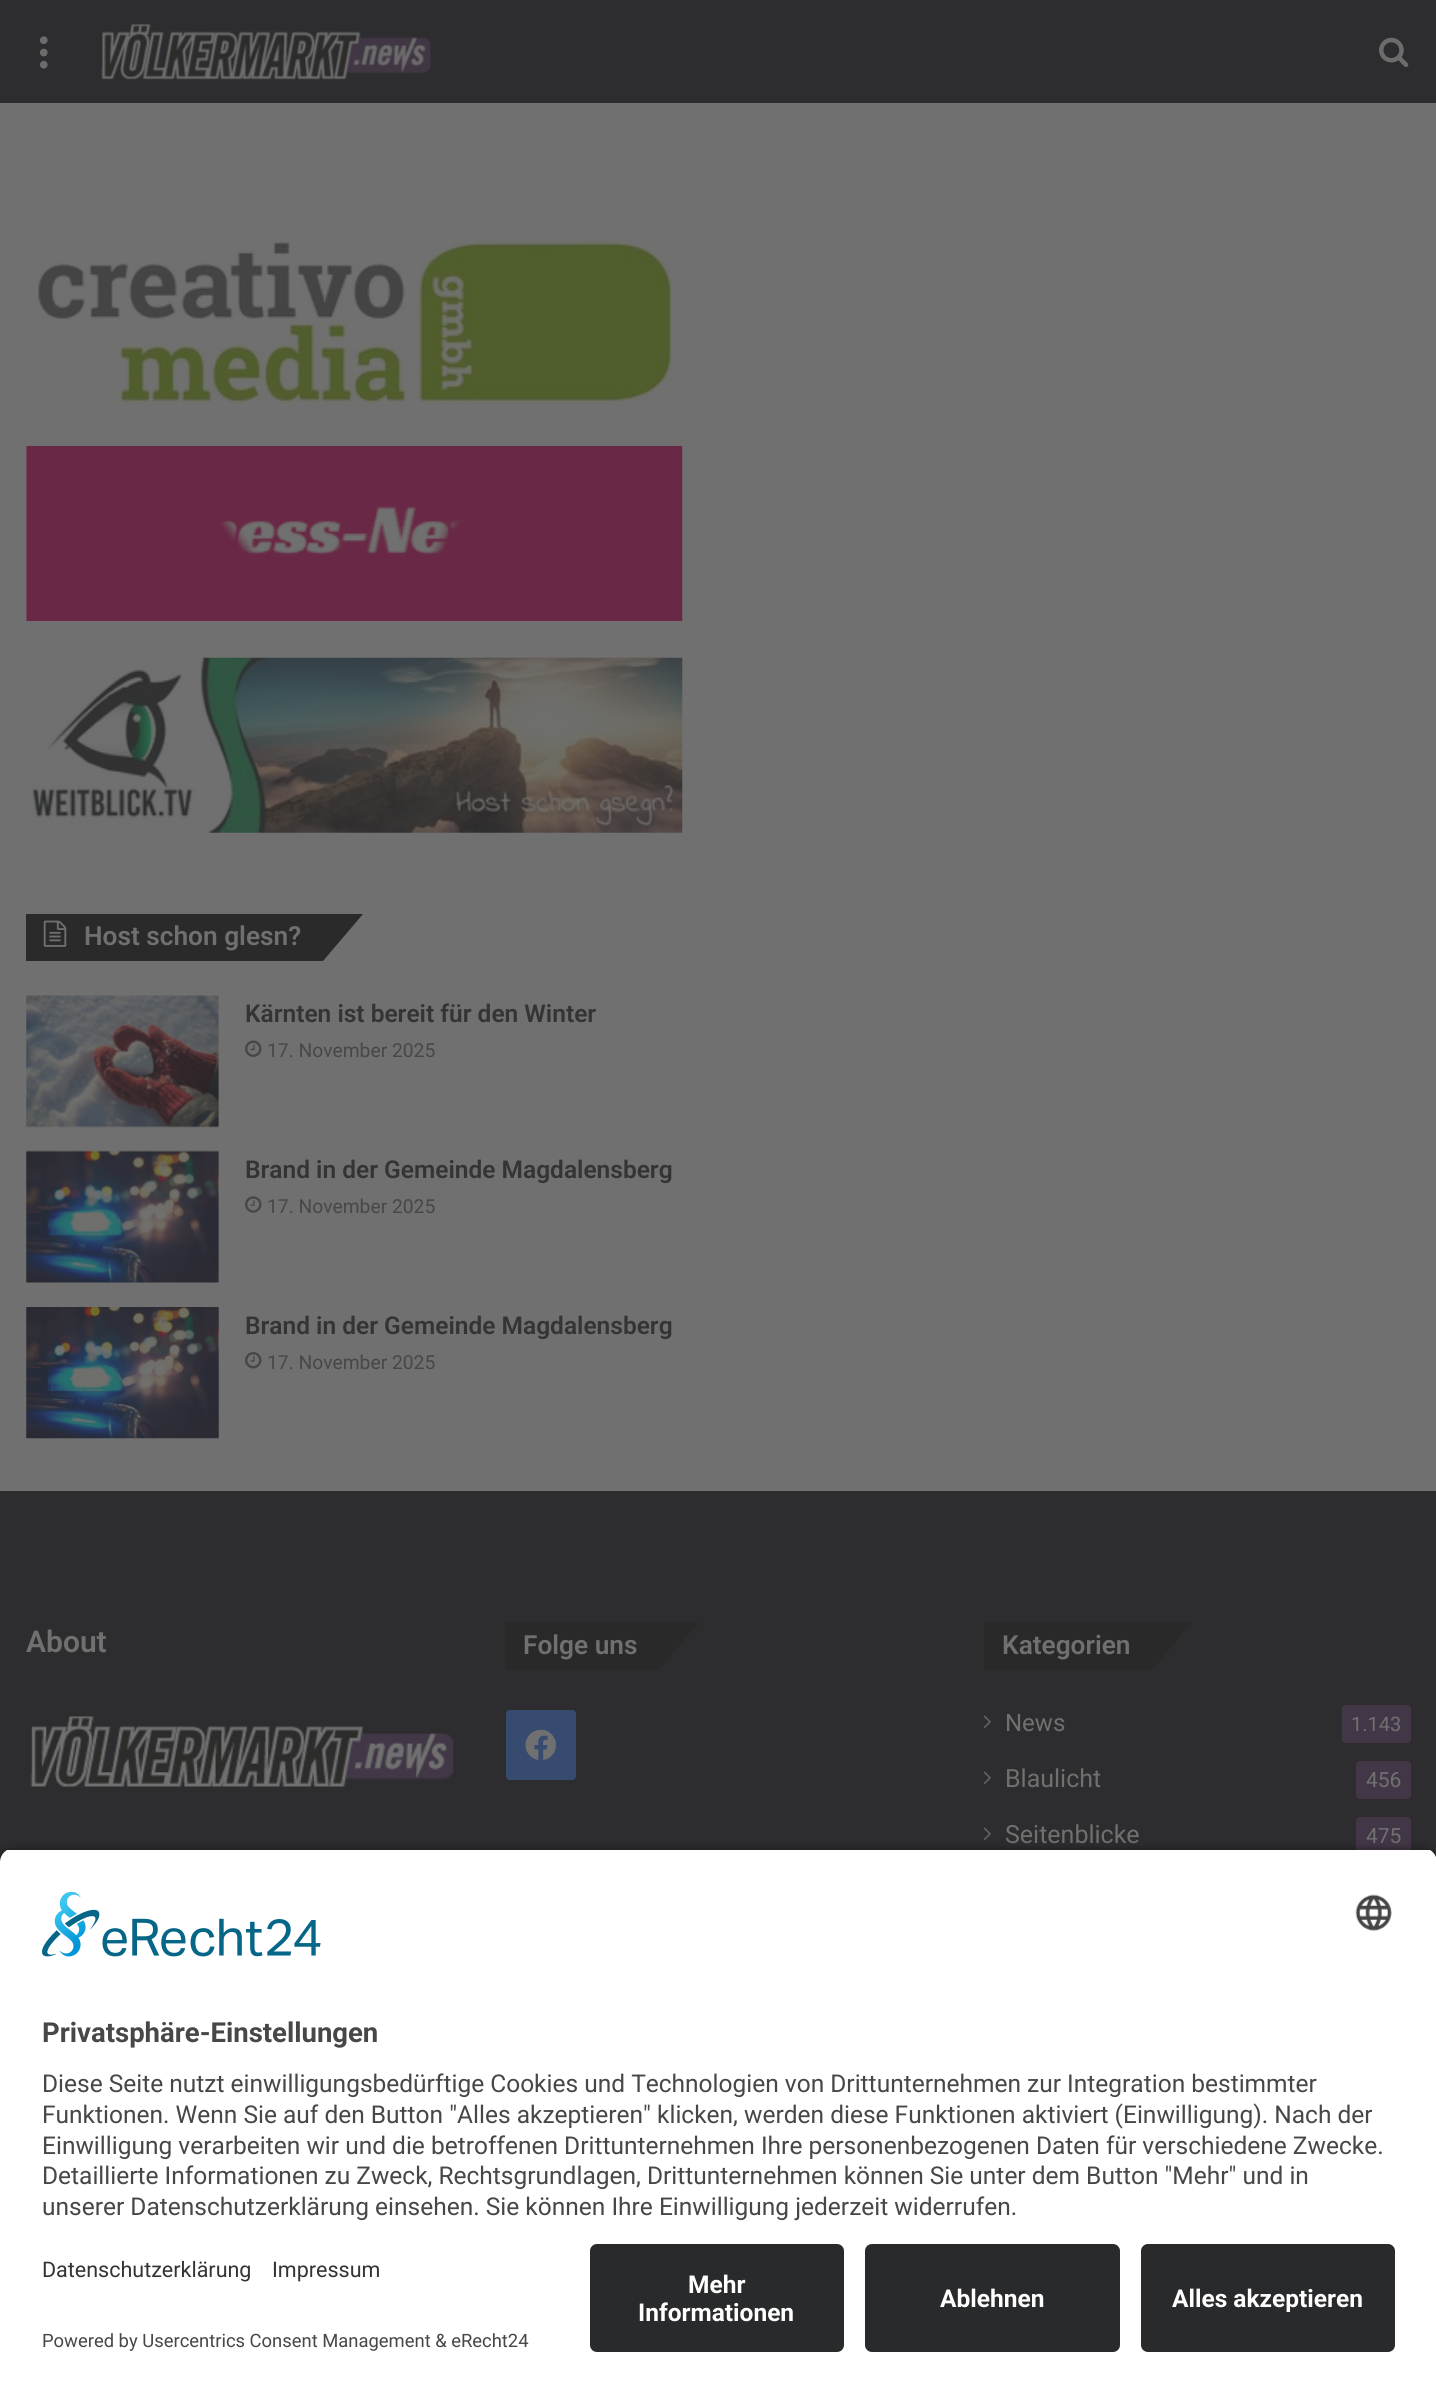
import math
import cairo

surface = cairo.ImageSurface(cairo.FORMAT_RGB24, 1436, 2394)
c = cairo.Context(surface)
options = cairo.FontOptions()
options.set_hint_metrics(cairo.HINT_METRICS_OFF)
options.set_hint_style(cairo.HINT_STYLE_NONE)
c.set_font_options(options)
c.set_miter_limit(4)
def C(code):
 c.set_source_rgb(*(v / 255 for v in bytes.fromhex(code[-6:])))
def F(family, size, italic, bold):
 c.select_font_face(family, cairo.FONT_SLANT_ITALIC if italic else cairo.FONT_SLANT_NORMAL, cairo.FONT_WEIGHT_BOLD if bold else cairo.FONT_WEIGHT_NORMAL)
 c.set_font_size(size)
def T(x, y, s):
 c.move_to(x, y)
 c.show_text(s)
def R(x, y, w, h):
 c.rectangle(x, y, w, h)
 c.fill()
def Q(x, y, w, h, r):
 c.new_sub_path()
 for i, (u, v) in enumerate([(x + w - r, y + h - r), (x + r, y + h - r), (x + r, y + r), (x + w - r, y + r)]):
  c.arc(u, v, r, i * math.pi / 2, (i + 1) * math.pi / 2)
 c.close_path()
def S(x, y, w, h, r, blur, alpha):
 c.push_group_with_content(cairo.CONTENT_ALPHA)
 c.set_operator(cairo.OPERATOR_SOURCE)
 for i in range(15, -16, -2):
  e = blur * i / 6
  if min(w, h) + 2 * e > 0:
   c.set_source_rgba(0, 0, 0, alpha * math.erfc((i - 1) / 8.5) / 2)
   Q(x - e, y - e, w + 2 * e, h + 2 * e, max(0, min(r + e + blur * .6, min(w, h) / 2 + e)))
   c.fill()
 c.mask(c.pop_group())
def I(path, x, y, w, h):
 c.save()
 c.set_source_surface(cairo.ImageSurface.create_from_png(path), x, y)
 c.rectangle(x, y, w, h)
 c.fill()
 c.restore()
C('707070')
c.paint()
C('2d2d2f')
R(0,0,1436,103)
I('1.png',39,36,9,33)
I('2.png',101,24,331,56)
I('3.png',1379,37,30,30)
I('4.png',37,234,636,171)
I('5.png',26,446,657,175)
I('6.png',27,657,656,176)
C('2a2a2a')
R(26,914,132,47)
c.new_path()
c.move_to(158,914)
c.line_to(363,914)
c.line_to(323,961)
c.line_to(119,961)
c.close_path()
c.fill()
I('7.png',43,920,24,27)
F('Roboto SemiBold',26.25,0,0)
C('707070')
T(84,945,'Host schon glesn?')
I('8.png',26,995,193,133)
F('Roboto SemiBold',24.5,0,0)
C('343434')
T(245,1022,'Kärnten ist bereit für den Winter')
I('9.png',245,1040,17,17)
F('Roboto',19.25,0,0)
C('474747')
T(267,1057,'17. November 2025')
I('10.png',26,1150,193,133)
F('Roboto SemiBold',24.5,0,0)
C('343434')
T(245,1178,'Brand in der Gemeinde Magdalensberg')
I('11.png',245,1196,17,17)
F('Roboto',19.25,0,0)
C('474747')
T(267,1213,'17. November 2025')
I('12.png',26,1307,193,132)
F('Roboto SemiBold',24.5,0,0)
C('343434')
T(245,1334,'Brand in der Gemeinde Magdalensberg')
I('13.png',245,1352,17,17)
F('Roboto',19.25,0,0)
C('474747')
T(267,1369,'17. November 2025')
C('2d2d2f')
R(0,1491,1436,371)
F('Roboto SemiBold',30,0,0)
C('707070')
T(26,1652,'About')
I('14.png',30,1716,424,71)
C('292929')
R(506,1622,88,48)
c.new_path()
c.move_to(594,1622)
c.line_to(699,1622)
c.line_to(659,1670)
c.line_to(555,1670)
c.close_path()
c.fill()
F('Roboto SemiBold',26.25,0,0)
C('707070')
T(523,1654,'Folge uns')
C('374a70')
Q(506,1710,70,70,4)
c.fill()
I('15.png',525,1729,31,31)
C('292929')
R(984,1622,93,48)
c.new_path()
c.move_to(1077,1622)
c.line_to(1192,1622)
c.line_to(1152,1670)
c.line_to(1038,1670)
c.close_path()
c.fill()
C('707070')
T(1002,1654,'Kategorien')
I('16.png',983,1715,8,14)
F('Roboto',24,0,0)
T(1005,1731,'News')
C('423746')
Q(1342,1705,69,38,4)
c.fill()
F('Roboto',20,0,0)
C('707070')
T(1351,1731,'1.143')
I('16.png',983,1771,8,14)
F('Roboto',25,0,0)
T(1005,1787,'Blaulicht')
C('423746')
Q(1356,1761,55,38,4)
c.fill()
F('Roboto',21,0,0)
C('707070')
T(1366,1787,'456')
I('16.png',983,1827,8,14)
F('Roboto',25,0,0)
T(1005,1843,'Seitenblicke')
C('423746')
Q(1356,1817,55,38,4)
c.fill()
F('Roboto',21,0,0)
C('707070')
T(1366,1843,'475')
C('000000')
S(0,1853,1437,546,14,6,.8)
c.save()
c.new_path()
c.move_to(14,1848)
c.line_to(1423,1848)
c.curve_to(1430.5,1848,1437,1854.5,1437,1862)
c.line_to(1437,2230)
c.line_to(0,2230)
c.line_to(0,1862)
c.curve_to(0,1854.5,6.5,1848,14,1848)
c.close_path()
c.clip()
C('ffffff')
R(0,1850,1436,380)
c.restore()
I('17.png',42,1892,279,65)
I('18.png',1355,1894,37,37)
F('Roboto',27.5,0,1)
C('474747')
T(42,2042,'Privatsphäre-Einstellungen')
F('Roboto',24.5,0,0)
T(42,2092,'Diese Seite nutzt einwilligungsbedürftige Cookies und Technologien von Drittunternehmen zur Integration bestimmter')
T(42,2123,'Funktionen. Wenn Sie auf den Button "Alles akzeptieren" klicken, werden diese Funktionen aktiviert (Einwilligung). Nach der')
T(42,2154,'Einwilligung verarbeiten wir und die betroffenen Drittunternehmen Ihre personenbezogenen Daten für verschiedene Zwecke.')
T(42,2184,'Detaillierte Informationen zu Zweck, Rechtsgrundlagen, Drittunternehmen können Sie unter dem Button "Mehr" und in')
T(42,2215,'unserer Datenschutzerklärung einsehen. Sie können Ihre Einwilligung jederzeit widerrufen.')
C('ffffff')
R(0,2230,1436,164)
F('Roboto',21.5,0,0)
C('343434')
T(42,2277,'Datenschutzerklärung')
T(272,2277,'Impressum')
F('Roboto',18.4,0,0)
C('474747')
T(42,2347,'Powered by Usercentrics Consent Management & eRecht24')
C('292a2b')
Q(590,2244,254,108,7)
c.fill()
F('Roboto',24.5,0,1)
C('ffffff')
T(688,2293,'Mehr')
T(638,2321,'Informationen')
C('292a2b')
Q(865,2244,255,108,7)
c.fill()
C('ffffff')
T(940,2307,'Ablehnen')
C('292a2b')
Q(1141,2244,254,108,7)
c.fill()
C('ffffff')
T(1172,2307,'Alles akzeptieren')
surface.write_to_png('o.png')
